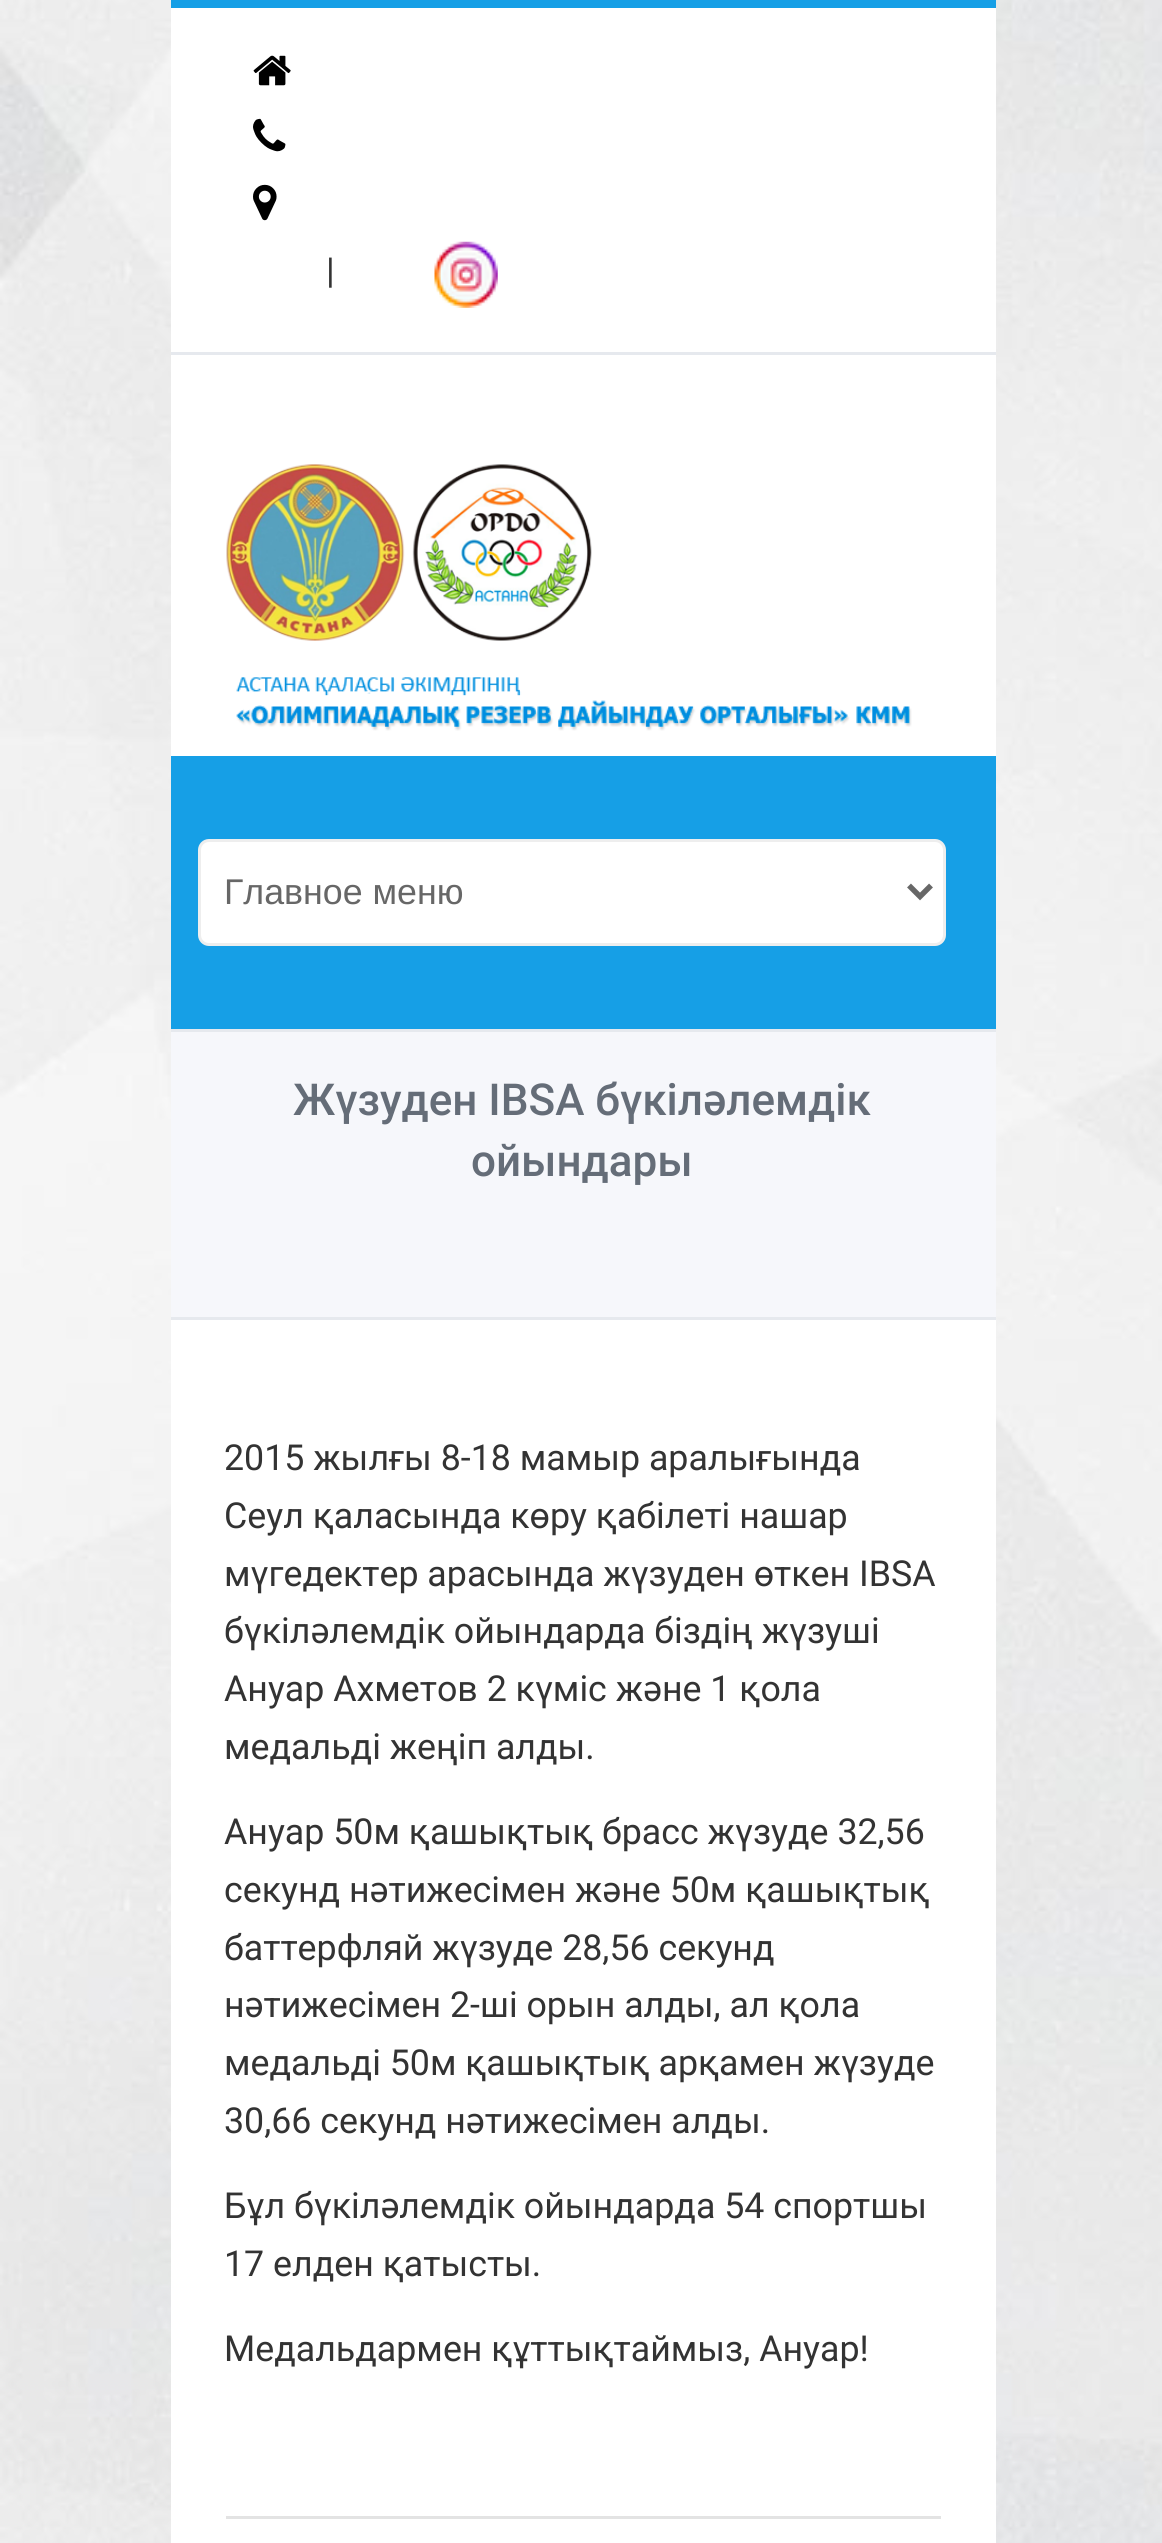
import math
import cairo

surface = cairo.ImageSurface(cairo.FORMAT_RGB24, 1162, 2543)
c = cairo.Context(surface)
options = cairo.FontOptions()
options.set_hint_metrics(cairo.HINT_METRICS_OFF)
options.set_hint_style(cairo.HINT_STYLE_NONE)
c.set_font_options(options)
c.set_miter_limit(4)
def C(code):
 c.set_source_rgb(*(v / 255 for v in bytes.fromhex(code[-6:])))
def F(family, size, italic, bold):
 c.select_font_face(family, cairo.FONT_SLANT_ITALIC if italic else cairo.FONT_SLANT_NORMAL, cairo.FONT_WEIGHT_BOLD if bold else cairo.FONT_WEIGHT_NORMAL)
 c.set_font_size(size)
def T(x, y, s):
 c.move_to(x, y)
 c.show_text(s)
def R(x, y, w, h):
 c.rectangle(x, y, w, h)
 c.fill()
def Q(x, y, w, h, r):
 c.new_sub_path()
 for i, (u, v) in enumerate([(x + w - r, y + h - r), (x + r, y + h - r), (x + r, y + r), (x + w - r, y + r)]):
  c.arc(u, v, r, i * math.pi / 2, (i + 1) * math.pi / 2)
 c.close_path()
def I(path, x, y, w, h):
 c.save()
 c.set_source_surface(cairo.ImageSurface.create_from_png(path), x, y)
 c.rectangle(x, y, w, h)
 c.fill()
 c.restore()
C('ffffff')
c.paint()
I('1.png',0,0,1162,2543)
C('ffffff')
R(171,8,825,2535)
C('169fe6')
R(171,0,825,8)
C('e6e9ee')
R(171,352,825,3)
I('2.png',253,55,38,31)
I('3.png',253,118,33,34)
I('4.png',253,184,24,37)
F('Roboto',35.75,0,0)
C('333333')
T(326,283,'|')
I('5.png',434,241,64,67)
I('6.png',226,464,179,177)
I('7.png',412,464,180,177)
I('8.png',236,677,676,54)
C('169fe6')
R(171,756,825,273)
C('ffffff')
Q(199.5,840.5,745,104,9.5)
c.fill_preserve()
C('eeeeee')
c.set_line_width(3)
c.stroke()
c.new_path()
c.move_to(909,885.5)
c.line_to(920,896.5)
c.line_to(931,885.5)
C('676767')
c.set_line_width(5.5)
c.stroke()
F('Liberation Sans',35.75,0,0)
T(224,904,'Главное меню')
C('f6f7fb')
R(171,1032,825,285)
C('e6e9ee')
R(171,1029,825,3)
R(171,1317,825,3)
F('Roboto Medium',44,0,0)
C('656d78')
T(293,1115,'Жүзуден IBSA бүкіләлемдік')
T(471,1176,'ойындары')
F('Roboto',35.75,0,0)
C('333333')
T(224,1470,'2015 жылғы 8-18 мамыр аралығында')
T(224,1528,'Сеул қаласында көру қабілеті нашар')
T(224,1586,'мүгедектер арасында жүзуден өткен IBSA')
T(224,1643,'бүкіләлемдік ойындарда біздің жүзуші')
T(224,1701,'Ануар Ахметов 2 күміс және 1 қола')
T(224,1759,'медальді жеңіп алды.')
T(224,1844,'Ануар 50м қашықтық брасс жүзуде 32,56')
T(224,1902,'секунд нәтижесімен және 50м қашықтық')
T(224,1960,'баттерфляй жүзуде 28,56 секунд')
T(224,2017,'нәтижесімен 2-ші орын алды, ал қола')
T(224,2075,'медальді 50м қашықтық арқамен жүзуде')
T(224,2133,'30,66 секунд нәтижесімен алды.')
T(224,2218,'Бұл бүкіләлемдік ойындарда 54 спортшы')
T(224,2276,'17 елден қатысты.')
T(224,2361,'Медальдармен құттықтаймыз, Ануар!')
C('e3e3e3')
R(226,2516,715,3)
surface.write_to_png('o.png')
